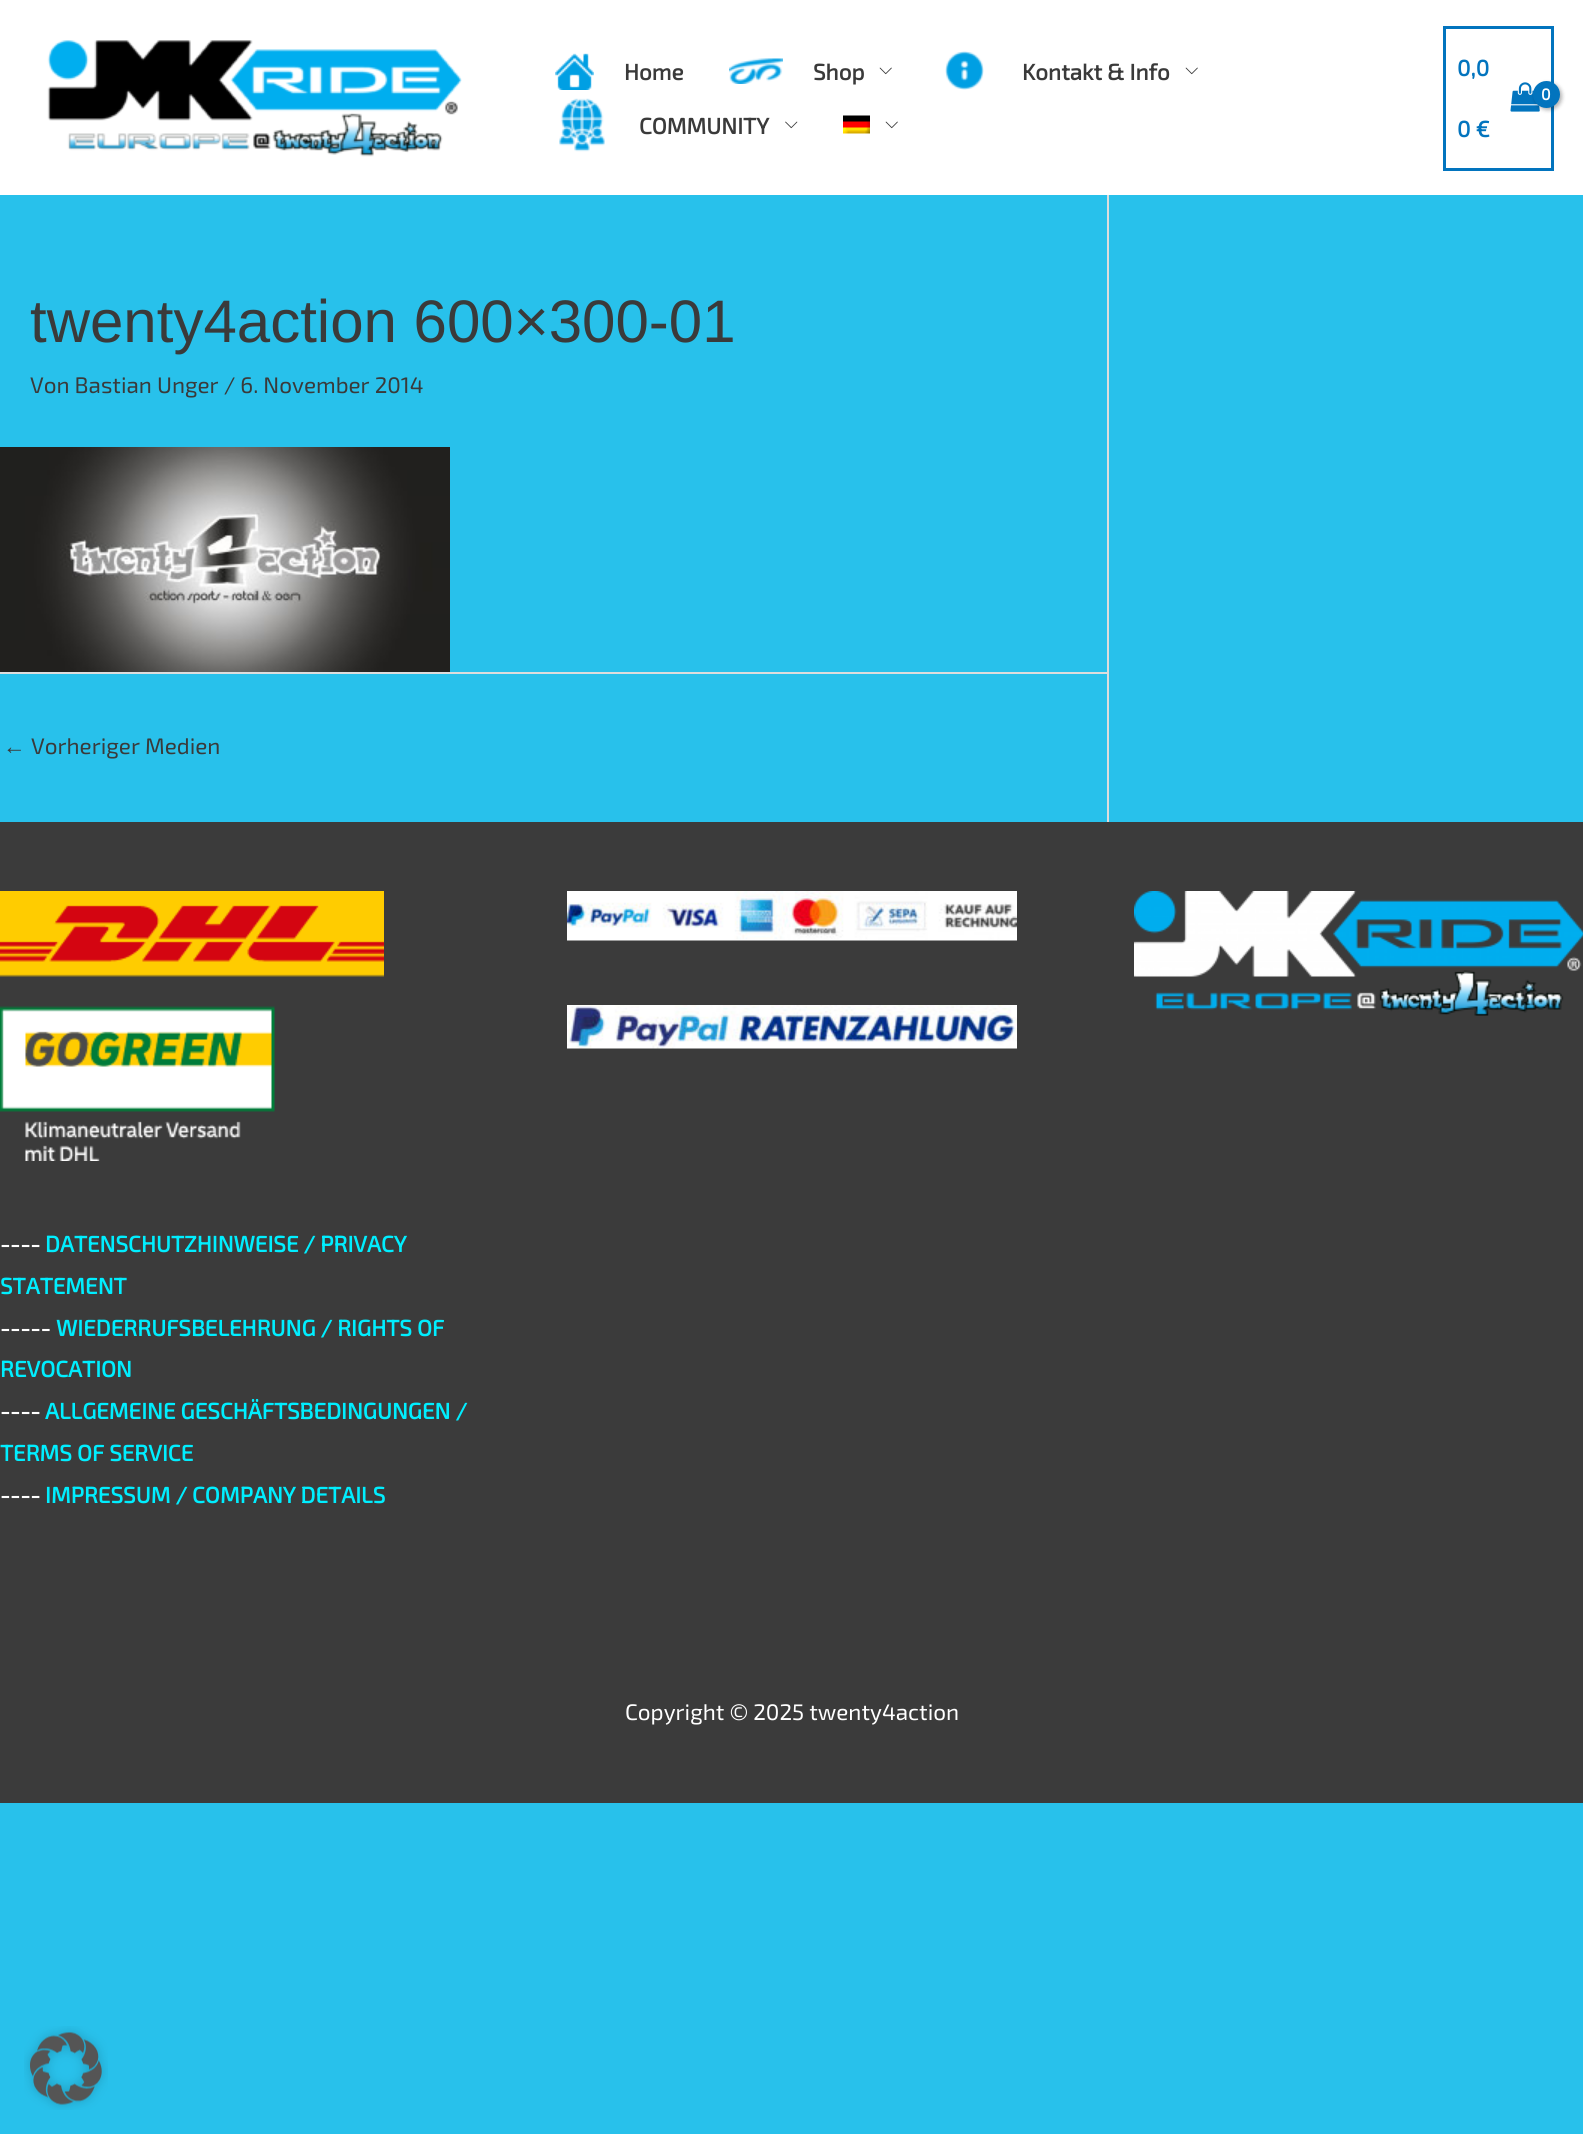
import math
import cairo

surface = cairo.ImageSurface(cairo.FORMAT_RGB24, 1583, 2134)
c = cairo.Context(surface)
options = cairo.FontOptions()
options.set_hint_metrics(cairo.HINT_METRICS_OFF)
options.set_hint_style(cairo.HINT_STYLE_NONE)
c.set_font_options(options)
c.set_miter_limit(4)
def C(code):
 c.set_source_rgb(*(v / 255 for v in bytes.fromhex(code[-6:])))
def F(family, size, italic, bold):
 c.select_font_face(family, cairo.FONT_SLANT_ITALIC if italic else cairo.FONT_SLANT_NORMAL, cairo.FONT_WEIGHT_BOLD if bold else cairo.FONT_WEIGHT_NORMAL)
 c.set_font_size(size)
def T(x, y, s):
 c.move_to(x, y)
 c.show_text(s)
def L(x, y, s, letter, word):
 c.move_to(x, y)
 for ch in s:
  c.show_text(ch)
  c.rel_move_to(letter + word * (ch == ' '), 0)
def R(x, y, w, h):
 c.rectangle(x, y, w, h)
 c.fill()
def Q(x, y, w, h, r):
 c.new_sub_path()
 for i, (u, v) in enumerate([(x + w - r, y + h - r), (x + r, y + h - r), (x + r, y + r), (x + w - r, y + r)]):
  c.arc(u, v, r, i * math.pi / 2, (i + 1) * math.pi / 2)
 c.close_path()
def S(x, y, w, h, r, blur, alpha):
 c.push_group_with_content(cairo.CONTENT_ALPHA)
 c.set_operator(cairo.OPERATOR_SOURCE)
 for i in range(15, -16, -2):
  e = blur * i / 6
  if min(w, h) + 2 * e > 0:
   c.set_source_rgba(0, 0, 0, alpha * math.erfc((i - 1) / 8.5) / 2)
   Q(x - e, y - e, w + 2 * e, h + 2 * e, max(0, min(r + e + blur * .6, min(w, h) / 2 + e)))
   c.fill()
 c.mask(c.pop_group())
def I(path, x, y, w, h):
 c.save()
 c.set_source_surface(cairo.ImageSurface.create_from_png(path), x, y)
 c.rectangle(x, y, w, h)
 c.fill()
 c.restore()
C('28c1eb')
c.paint()
C('ffffff')
R(0,0,1583,195)
I('1.png',47,40,415,117)
I('2.png',555,53,39,37)
F('Exo 2',22.5,0,1)
C('3a3a3a')
T(624,80,'Home')
I('3.png',729,58,54,26)
T(813,80,'Shop')
I('4.png',879,67,13,8)
I('5.png',945,51,39,39)
T(1022,80,'Kontakt & Info')
I('4.png',1185,67,13,8)
I('6.png',559,98,46,54)
T(639,134,'COMMUNITY')
I('7.png',785,121,13,8)
I('8.png',843,115,27,19)
I('4.png',885,121,13,8)
c.rectangle(1444.5,27.5,108,142)
C('0274be')
c.set_line_width(3)
c.stroke()
T(1457,76,'0,0')
T(1457,137,'0 €')
I('9.png',1510,82,30,30)
C('000000')
S(1535,83,27,27,13.5,2,.3)
C('0274be')
c.arc(1546.5,94.5,13.5,0,2 * math.pi)
c.fill()
F('Exo 2',16,0,1)
C('ffffff')
L(1541,100,'0',-1,0)
C('dddddd')
R(1107,195,2,627)
F('Liberation Sans',60,0,0)
C('3a3a3a')
T(30,342,'twenty4action 600×300-01')
F('Exo 2',22.5,0,0)
T(30,393,'Von Bastian Unger / 6. November 2014')
I('10.png',0,447,450,225)
C('dddddd')
R(0,672,1107,2)
F('Liberation Sans',22.5,0,0)
C('3a3a3a')
T(3,754,'←')
F('Exo 2',22.5,0,0)
T(31,754,'Vorheriger Medien')
C('3b3b3b')
R(0,822,1583,981)
I('11.png',567,891,450,50)
I('12.png',567,1005,450,44)
I('13.png',1134,891,449,125)
I('14.png',0,891,384,270)
F('Exo 2',22.5,0,1)
C('ffffff')
T(0,1252,'----')
C('00eeff')
T(45,1252,'DATENSCHUTZHINWEISE / PRIVACY')
T(0,1294,'STATEMENT')
C('ffffff')
T(0,1336,'-----')
C('00eeff')
T(56,1336,'WIEDERRUFSBELEHRUNG / RIGHTS OF')
T(0,1377,'REVOCATION')
C('ffffff')
T(0,1419,'----')
C('00eeff')
T(45,1419,'ALLGEMEINE GESCHÄFTSBEDINGUNGEN /')
T(0,1461,'TERMS OF SERVICE')
C('ffffff')
T(0,1503,'----')
C('00eeff')
T(45,1503,'IMPRESSUM / COMPANY DETAILS')
F('Exo 2',22.5,0,0)
C('ffffff')
T(625,1720,'Copyright © 2025 twenty4action')
I('15.png',24,2026,84,84)
surface.write_to_png('o.png')
